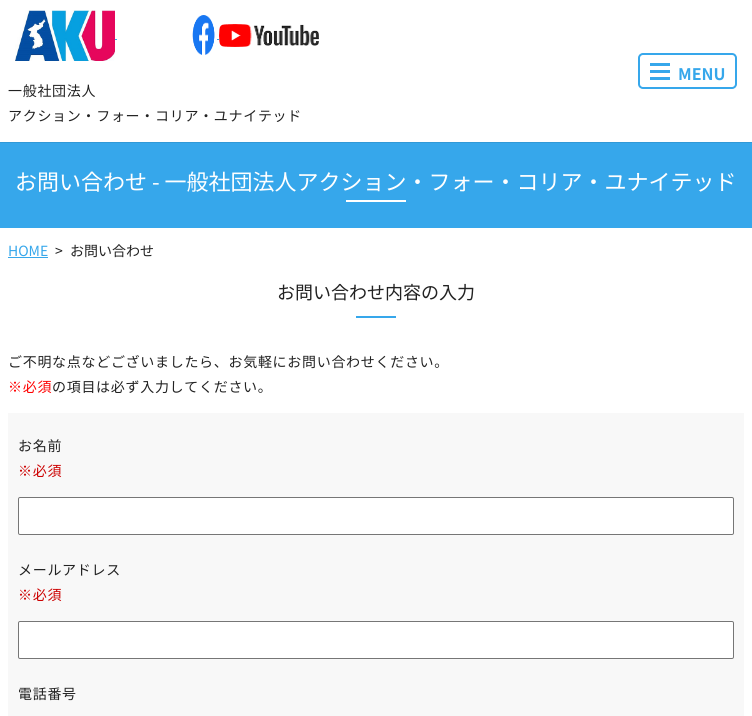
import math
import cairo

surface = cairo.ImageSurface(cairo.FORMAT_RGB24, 752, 716)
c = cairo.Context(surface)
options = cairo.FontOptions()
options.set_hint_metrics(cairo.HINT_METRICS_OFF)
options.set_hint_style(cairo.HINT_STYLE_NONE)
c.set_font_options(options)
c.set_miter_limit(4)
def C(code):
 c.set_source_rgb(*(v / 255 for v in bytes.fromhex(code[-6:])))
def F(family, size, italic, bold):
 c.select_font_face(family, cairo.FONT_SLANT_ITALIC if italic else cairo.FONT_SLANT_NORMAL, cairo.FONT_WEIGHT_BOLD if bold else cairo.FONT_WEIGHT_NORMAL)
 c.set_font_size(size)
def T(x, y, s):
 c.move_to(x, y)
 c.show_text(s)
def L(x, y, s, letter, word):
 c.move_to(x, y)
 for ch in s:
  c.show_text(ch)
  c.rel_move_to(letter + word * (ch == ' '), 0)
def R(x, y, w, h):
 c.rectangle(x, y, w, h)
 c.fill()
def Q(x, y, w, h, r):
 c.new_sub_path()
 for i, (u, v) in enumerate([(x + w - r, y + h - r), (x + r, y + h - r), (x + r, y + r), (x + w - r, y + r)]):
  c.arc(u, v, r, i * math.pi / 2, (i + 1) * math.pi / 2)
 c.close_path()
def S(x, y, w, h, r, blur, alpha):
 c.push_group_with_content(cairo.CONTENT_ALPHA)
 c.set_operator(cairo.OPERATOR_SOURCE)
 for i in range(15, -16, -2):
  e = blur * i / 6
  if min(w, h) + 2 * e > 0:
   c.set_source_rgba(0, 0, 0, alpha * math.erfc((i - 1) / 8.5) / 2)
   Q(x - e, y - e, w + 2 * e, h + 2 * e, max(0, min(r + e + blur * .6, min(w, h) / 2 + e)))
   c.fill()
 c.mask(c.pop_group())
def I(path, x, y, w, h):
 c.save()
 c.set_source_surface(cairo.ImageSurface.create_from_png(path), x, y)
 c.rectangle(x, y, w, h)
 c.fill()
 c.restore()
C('ffffff')
c.paint()
C('36a7eb')
R(0,142,752,86)
c.save()
c.rectangle(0,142,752,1)
c.clip()
C('000000')
S(0,1,752,142,0,.5,.1)
c.restore()
I('1.png',15,10,100,51)
R(115,39,2,1)
I('2.png',192,15,23,40)
R(217,39,2,1)
I('3.png',219,24,100,23)
Q(639,54,97,34,4)
c.stroke()
R(650,70,20,3)
R(650,63,20,3)
R(650,77,20,3)
F('Noto Sans JP',16,0,1)
T(678,80,'MENU')
F('Noto Sans JP',14,0,0)
C('222222')
L(8,96,'一般社団法人',.7,0)
L(8,121,'アクション・フォー・コリア・ユナイテッド',.7,0)
F('Noto Sans JP',22,0,0)
C('ffffff')
T(15,190,'お問い合わせ - 一般社団法人アクション・フォー・コリア・ユナイテッド')
R(346,200,60,2)
F('Noto Sans JP',14,0,0)
C('36a7eb')
T(8,256,'HOME')
R(8,257,40,1)
C('222222')
T(55,256,'>')
T(70,256,'お問い合わせ')
F('Noto Sans JP',18,0,0)
T(277,299,'お問い合わせ内容の入力')
C('36a7eb')
R(356,316,40,2)
F('Noto Sans JP',14,0,0)
C('222222')
L(8,367,'ご不明な点などございましたら、お気軽にお問い合わせください。',.7,0)
C('ff0000')
L(8,392,'※必須',.7,0)
C('222222')
L(52,392,'の項目は必ず入力してください。',.7,0)
C('f8f8f8')
R(8,413,736,303)
C('222222')
L(18,451,'お名前',.7,0)
C('cc0000')
L(18,476,'※必須',.7,0)
C('ffffff')
Q(18.5,497.5,715,37,1.5)
c.fill_preserve()
C('767676')
c.set_line_width(1)
c.stroke()
C('222222')
L(18,575,'メールアドレス',.7,0)
C('cc0000')
L(18,600,'※必須',.7,0)
C('ffffff')
Q(18.5,621.5,715,37,1.5)
c.fill_preserve()
C('767676')
c.stroke()
C('222222')
L(18,699,'電話番号',.7,0)
surface.write_to_png('o.png')
